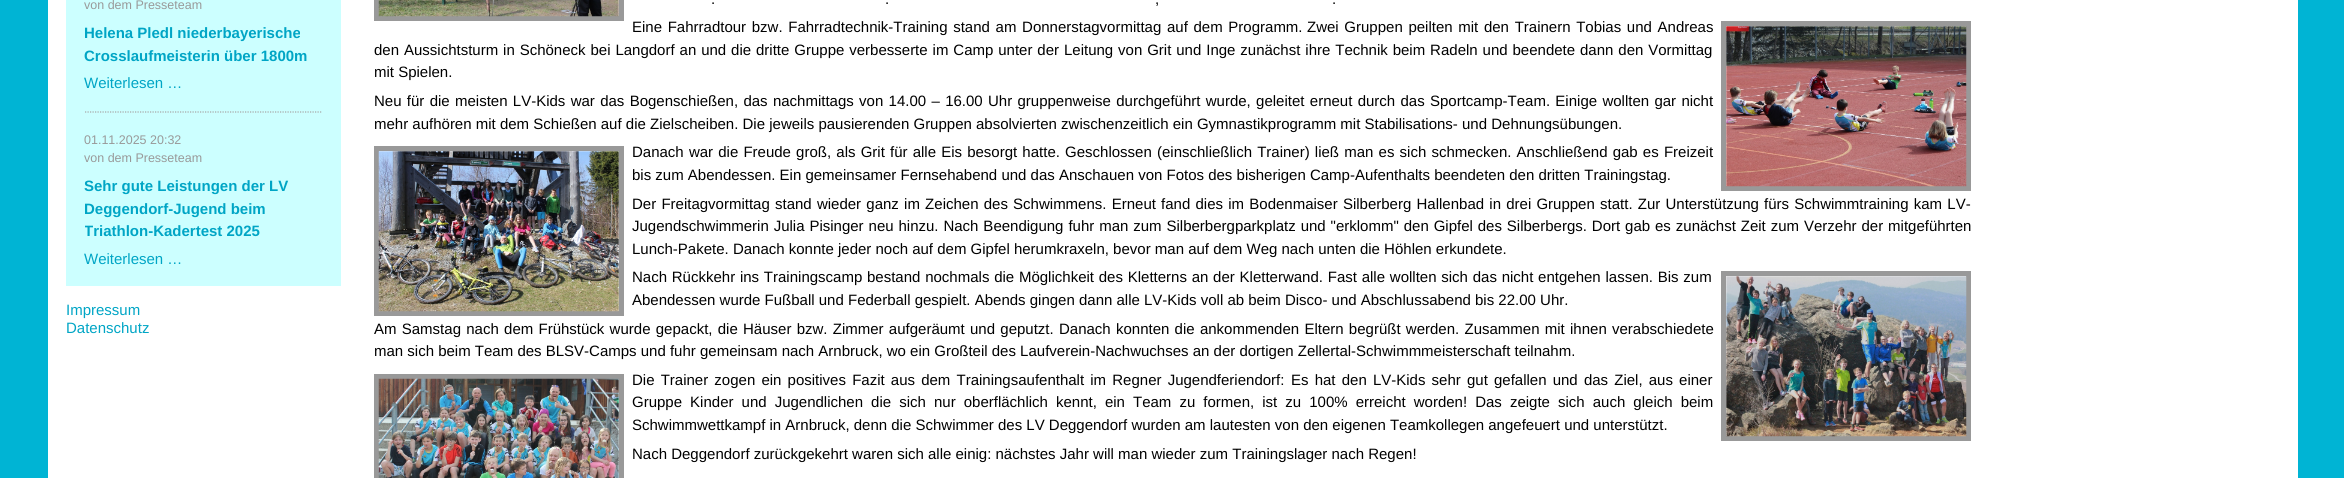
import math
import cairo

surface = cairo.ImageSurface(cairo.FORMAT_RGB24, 2344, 478)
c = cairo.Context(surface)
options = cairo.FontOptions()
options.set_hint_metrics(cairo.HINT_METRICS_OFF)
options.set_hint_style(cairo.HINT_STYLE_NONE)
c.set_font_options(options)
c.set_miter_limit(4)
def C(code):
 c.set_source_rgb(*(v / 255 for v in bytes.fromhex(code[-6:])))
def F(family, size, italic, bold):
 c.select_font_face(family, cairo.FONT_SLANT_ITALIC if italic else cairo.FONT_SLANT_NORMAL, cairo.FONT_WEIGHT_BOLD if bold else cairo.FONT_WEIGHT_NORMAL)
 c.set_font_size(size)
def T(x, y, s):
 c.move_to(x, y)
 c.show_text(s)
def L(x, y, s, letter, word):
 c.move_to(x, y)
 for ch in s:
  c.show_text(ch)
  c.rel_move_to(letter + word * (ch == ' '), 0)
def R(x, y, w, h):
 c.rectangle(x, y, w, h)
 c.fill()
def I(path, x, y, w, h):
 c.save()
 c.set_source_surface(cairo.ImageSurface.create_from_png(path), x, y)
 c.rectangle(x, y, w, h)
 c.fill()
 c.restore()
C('00b4d4')
c.paint()
C('ffffff')
R(48,0,2250,478)
C('ccffff')
R(66,0,275,286)
c.new_path()
c.move_to(85,112)
c.line_to(322.5,112)
C('a6a6a6')
c.set_line_width(1.2)
c.set_dash([1.25,1.25])
c.stroke()
F('Liberation Sans',12.5,0,0)
C('999999')
T(84,9,'von dem Presseteam')
F('Liberation Sans',15,0,1)
C('00a5c5')
T(84,38,'Helena Pledl niederbayerische')
T(84,61,'Crosslaufmeisterin über 1800m')
F('Liberation Sans',15,0,0)
T(84,88,'Weiterlesen …')
F('Liberation Sans',12.5,0,0)
C('999999')
T(84,144,'01.11.2025 20:32')
T(84,162,'von dem Presseteam')
F('Liberation Sans',15,0,1)
C('00a5c5')
T(84,191,'Sehr gute Leistungen der LV')
T(84,214,'Deggendorf-Jugend beim')
c.save()
c.rectangle(85,113,238,173)
c.clip()
T(84,236,'Triathlon-Kadertest 2025')
c.restore()
F('Liberation Sans',15,0,0)
T(84,264,'Weiterlesen …')
T(66,315,'Impressum')
T(66,333,'Datenschutz')
c.rectangle(376.5,-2.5,245,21)
C('999999')
c.set_line_width(5)
c.set_dash([])
c.stroke()
I('1.png',378,0,241,17)
C('000000')
T(711,4,'.')
T(885,4,'.')
T(1155,4,',')
T(1332,4,'.')
L(632,32,'Eine Fahrradtour bzw. Fahrradtechnik-Training stand am Donnerstagvormittag auf dem Programm.',0,1.5)
L(1307,32,'Zwei Gruppen peilten mit den Trainern Tobias und Andreas',0,1.5)
L(374,55,'den Aussichtsturm in Schöneck bei Langdorf an und die dritte Gruppe verbesserte im Camp unter der Leitung von Grit und Inge zunächst ihre Technik beim Radeln und beendete dann den Vormittag',0,.75)
T(374,77,'mit Spielen.')
c.rectangle(1723.5,23.5,245,165)
C('999999')
c.stroke()
I('2.png',1726,26,241,161)
C('000000')
L(374,106,'Neu für die meisten LV-Kids war das Bogenschießen, das nachmittags von 14.00 – 16.00 Uhr gruppenweise durchgeführt wurde, geleitet erneut durch das Sportcamp-Team. Einige wollten gar nicht',0,1.15)
T(374,129,'mehr aufhören mit dem Schießen auf die Zielscheiben. Die jeweils pausierenden Gruppen absolvierten zwischenzeitlich ein Gymnastikprogramm mit Stabilisations- und Dehnungsübungen.')
c.rectangle(376.5,148.5,245,165)
C('999999')
c.stroke()
I('3.png',378,151,241,161)
C('000000')
L(632,157,'Danach war die Freude groß, als Grit für alle Eis besorgt hatte. Geschlossen (einschließlich Trainer) ließ man es sich schmecken. Anschließend gab es Freizeit',0,1)
T(632,180,'bis zum Abendessen. Ein gemeinsamer Fernsehabend und das Anschauen von Fotos des bisherigen Camp-Aufenthalts beendeten den dritten Trainingstag.')
L(632,209,'Der Freitagvormittag stand wieder ganz im Zeichen des Schwimmens. Erneut fand dies im Bodenmaiser Silberberg Hallenbad in drei Gruppen statt. Zur Unterstützung fürs Schwimmtraining kam LV-',0,1.05)
L(632,231,'Jugendschwimmerin Julia Pisinger neu hinzu. Nach Beendigung fuhr man zum Silberbergparkplatz und "erklomm" den Gipfel des Silberbergs. Dort gab es zunächst Zeit zum',0,.75)
L(1804,231,'Verzehr der mitgeführten',0,.75)
T(632,254,'Lunch-Pakete. Danach konnte jeder noch auf dem Gipfel herumkraxeln, bevor man auf dem Weg nach unten die Höhlen erkundete.')
L(632,282,'Nach Rückkehr ins Trainingscamp bestand nochmals die Möglichkeit des Kletterns an der Kletterwand. Fast alle wollten sich das nicht entgehen lassen. Bis zum',0,.6)
T(632,305,'Abendessen wurde Fußball und Federball gespielt. Abends gingen dann alle LV-Kids voll ab beim Disco- und Abschlussabend bis 22.00 Uhr.')
c.rectangle(1723.5,273.5,245,165)
C('999999')
c.stroke()
I('4.png',1726,276,241,161)
C('000000')
L(374,334,'Am Samstag nach dem Frühstück wurde gepackt, die Häuser bzw. Zimmer aufgeräumt und geputzt. Danach konnten die ankommenden Eltern begrüßt werden. Zusammen mit ihnen verabschiedete',0,1.1)
T(374,356,'man sich beim Team des BLSV-Camps und fuhr gemeinsam nach Arnbruck, wo ein Großteil des Laufverein-Nachwuchses an der dortigen Zellertal-Schwimmmeisterschaft teilnahm.')
c.rectangle(376.5,376.5,245,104)
C('999999')
c.stroke()
I('5.png',378,378,241,100)
C('000000')
L(632,385,'Die Trainer zogen ein positives Fazit aus dem Trainingsaufenthalt im Regner Jugendferiendorf:',0,2)
L(1291,385,'Es hat den LV-Kids sehr gut gefallen und das Ziel, aus einer',0,2)
L(632,407,'Gruppe Kinder und Jugendlichen die sich nur oberflächlich kennt, ein Team zu formen, ist zu 100% erreicht worden! Das zeigte sich auch gleich beim',0,3.9)
T(632,430,'Schwimmwettkampf in Arnbruck, denn die Schwimmer des LV Deggendorf wurden am lautesten von den eigenen Teamkollegen angefeuert und unterstützt.')
T(632,459,'Nach Deggendorf zurückgekehrt waren sich alle einig: nächstes Jahr will man wieder zum Trainingslager nach Regen!')
surface.write_to_png('o.png')
